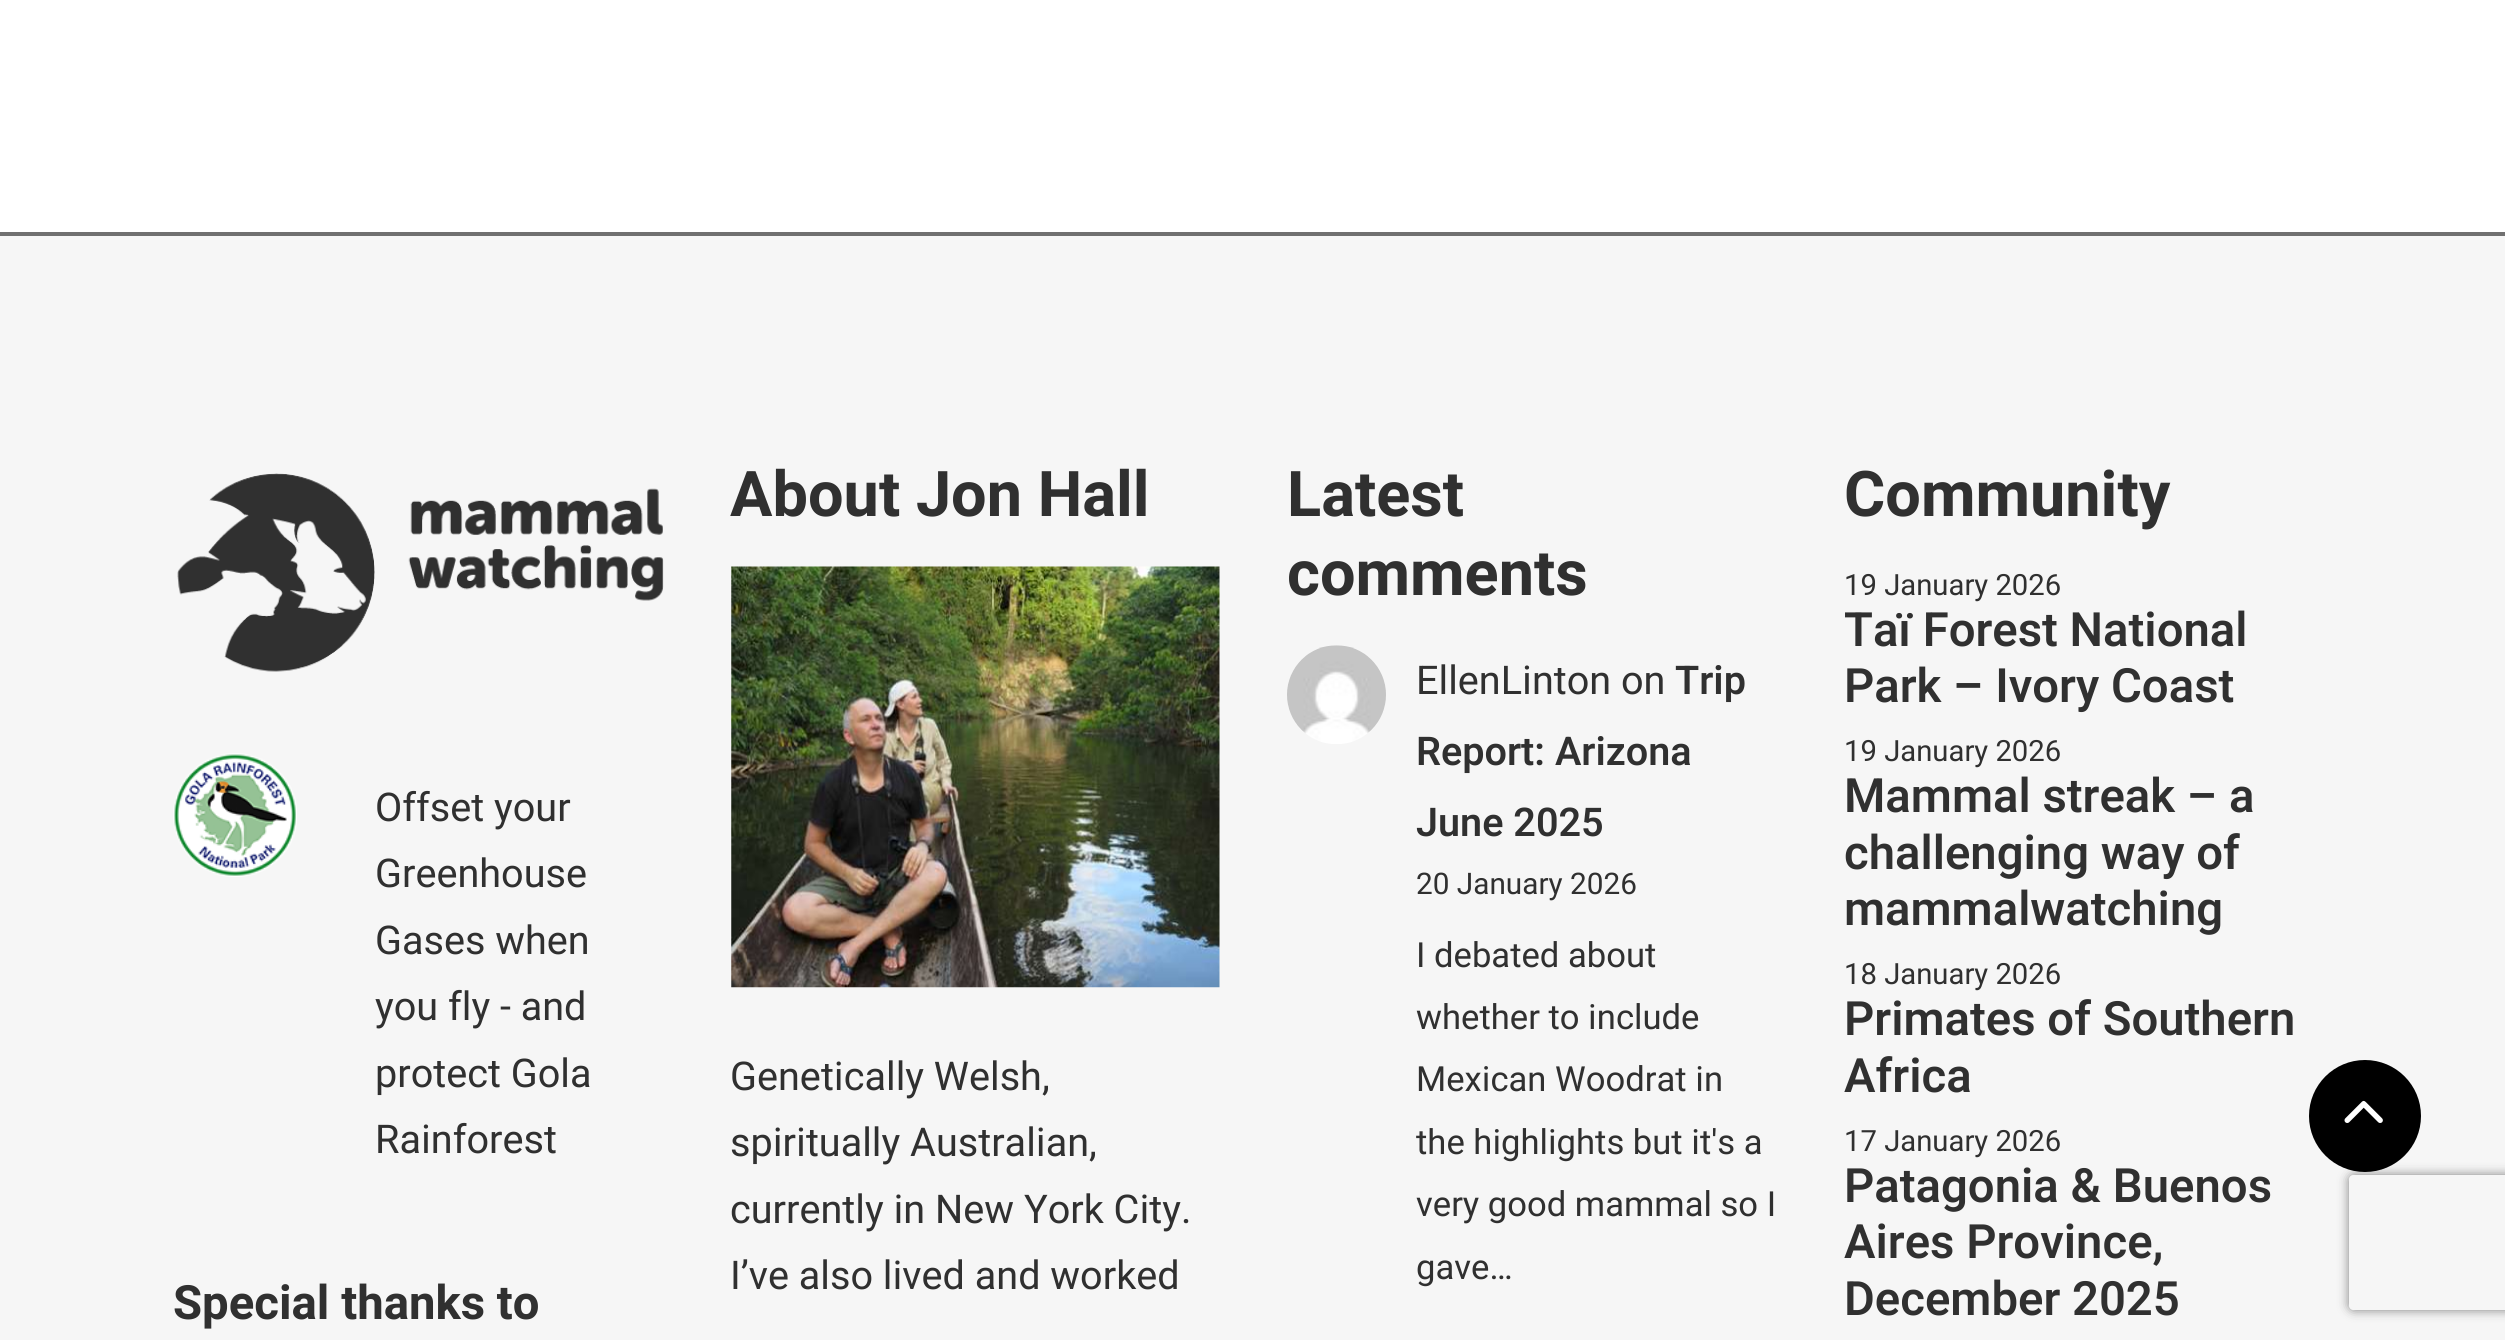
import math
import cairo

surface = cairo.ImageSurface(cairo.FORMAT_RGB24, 2505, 1340)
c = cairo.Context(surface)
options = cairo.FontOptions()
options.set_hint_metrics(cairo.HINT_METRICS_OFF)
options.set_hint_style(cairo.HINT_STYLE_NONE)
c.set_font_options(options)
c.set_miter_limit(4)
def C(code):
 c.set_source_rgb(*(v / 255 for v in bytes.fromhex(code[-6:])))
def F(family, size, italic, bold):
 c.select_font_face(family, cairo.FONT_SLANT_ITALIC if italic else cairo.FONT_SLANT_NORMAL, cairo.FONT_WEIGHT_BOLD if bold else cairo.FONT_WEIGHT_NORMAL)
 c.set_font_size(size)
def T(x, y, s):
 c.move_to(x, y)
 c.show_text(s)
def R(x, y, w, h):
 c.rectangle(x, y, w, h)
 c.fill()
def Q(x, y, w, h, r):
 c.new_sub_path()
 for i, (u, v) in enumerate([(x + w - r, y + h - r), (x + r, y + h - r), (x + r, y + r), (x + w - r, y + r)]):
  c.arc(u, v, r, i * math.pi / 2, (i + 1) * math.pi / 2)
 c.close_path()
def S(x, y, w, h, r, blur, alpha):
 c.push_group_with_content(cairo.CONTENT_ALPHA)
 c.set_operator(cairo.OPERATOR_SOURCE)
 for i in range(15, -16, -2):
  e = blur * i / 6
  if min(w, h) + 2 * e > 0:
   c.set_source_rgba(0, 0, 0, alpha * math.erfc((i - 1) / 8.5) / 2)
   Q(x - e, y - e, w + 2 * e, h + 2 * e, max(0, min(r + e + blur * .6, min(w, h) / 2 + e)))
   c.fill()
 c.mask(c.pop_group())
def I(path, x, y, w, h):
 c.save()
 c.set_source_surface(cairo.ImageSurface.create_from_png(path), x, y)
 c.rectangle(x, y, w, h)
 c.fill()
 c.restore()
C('ffffff')
c.paint()
C('707070')
R(0,232,2505,4)
C('f6f6f6')
R(0,236,2505,1104)
I('1.png',177,473,487,199)
I('2.png',173,753,124,124)
F('Heebo',39.6,0,0)
C('303030')
T(375,821,'Offset your')
T(375,887,'Greenhouse')
T(375,954,'Gases when')
T(375,1020,'you fly - and')
T(375,1087,'protect Gola')
T(375,1153,'Rainforest')
F('Heebo',47.25,0,1)
T(173,1319,'Special thanks to')
F('Heebo',63,0,1)
T(730,516,'About Jon Hall')
I('3.png',731,566,489,422)
F('Heebo',39.6,0,0)
T(730,1090,'Genetically Welsh,')
T(730,1156,'spiritually Australian,')
T(730,1223,'currently in New York City.')
T(730,1289,'I’ve also lived and worked')
F('Heebo',63,0,1)
T(1287,516,'Latest')
T(1287,595,'comments')
I('4.png',1287,645,99,99)
F('Heebo',39.6,0,0)
T(1416,694,'EllenLinton on')
F('Heebo SemiBold',39.6,0,0)
T(1675,694,'Trip')
T(1416,765,'Report: Arizona')
T(1416,836,'June 2025')
F('Heebo',29.75,0,0)
T(1416,894,'20 January 2026')
F('Heebo',34.6,0,0)
T(1416,967,'I debated about')
T(1416,1029,'whether to include')
T(1416,1091,'Mexican Woodrat in')
T(1416,1154,'the highlights but it\'s a')
T(1416,1216,'very good mammal so I')
T(1416,1279,'gave…')
F('Heebo',63,0,1)
T(1844,516,'Community')
F('Heebo',29.25,0,0)
T(1844,595,'19 January 2026')
F('Heebo SemiBold',47.25,0,0)
T(1844,646,'Taï Forest National')
T(1844,702,'Park – Ivory Coast')
F('Heebo',29.25,0,0)
T(1844,761,'19 January 2026')
F('Heebo SemiBold',47.25,0,0)
T(1844,812,'Mammal streak – a')
T(1844,869,'challenging way of')
T(1844,925,'mammalwatching')
F('Heebo',29.25,0,0)
T(1844,984,'18 January 2026')
F('Heebo SemiBold',47.25,0,0)
T(1844,1035,'Primates of Southern')
T(1844,1092,'Africa')
F('Heebo',29.25,0,0)
T(1844,1151,'17 January 2026')
F('Heebo SemiBold',47.25,0,0)
T(1844,1202,'Patagonia & Buenos')
T(1844,1258,'Aires Province,')
T(1844,1315,'December 2025')
c.save()
c.set_fill_rule(cairo.FILL_RULE_EVEN_ODD)
c.new_path()
c.move_to(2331,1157)
c.line_to(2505,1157)
c.line_to(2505,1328)
c.line_to(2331,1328)
c.close_path()
c.move_to(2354,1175)
c.line_to(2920,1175)
c.curve_to(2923,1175,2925,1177,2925,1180)
c.line_to(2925,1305)
c.curve_to(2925,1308,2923,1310,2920,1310)
c.line_to(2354,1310)
c.curve_to(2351,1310,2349,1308,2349,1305)
c.line_to(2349,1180)
c.curve_to(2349,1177,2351,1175,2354,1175)
c.close_path()
c.clip()
C('808080')
S(2349,1175,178,135,5,5.5,1)
c.restore()
C('000000')
c.arc(2365,1116,56,0,2 * math.pi)
c.fill()
I('5.png',2344,1100,39,23)
surface.write_to_png('o.png')
